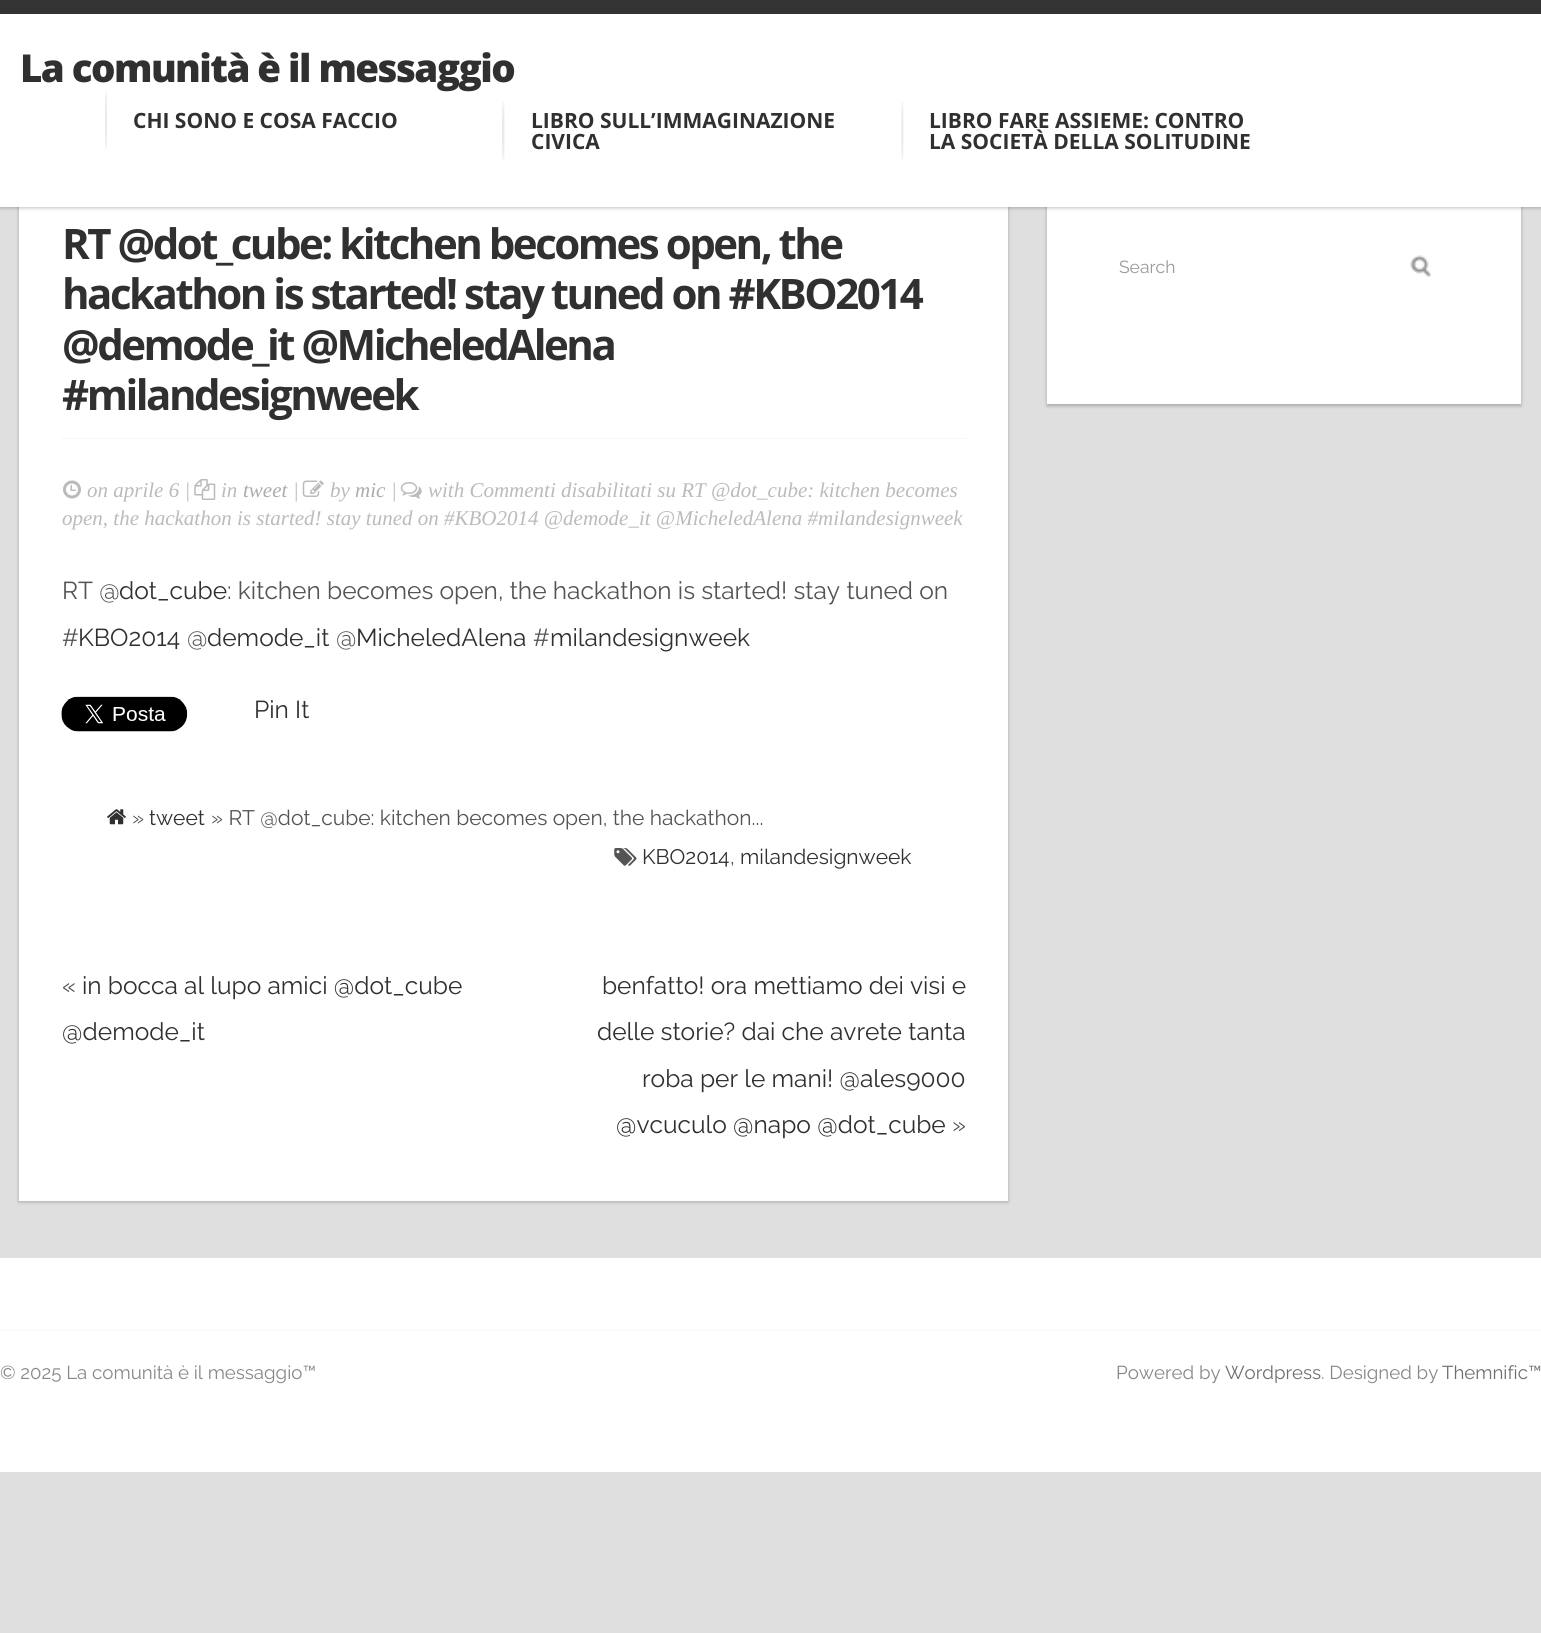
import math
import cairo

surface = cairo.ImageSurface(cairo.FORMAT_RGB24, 1541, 1633)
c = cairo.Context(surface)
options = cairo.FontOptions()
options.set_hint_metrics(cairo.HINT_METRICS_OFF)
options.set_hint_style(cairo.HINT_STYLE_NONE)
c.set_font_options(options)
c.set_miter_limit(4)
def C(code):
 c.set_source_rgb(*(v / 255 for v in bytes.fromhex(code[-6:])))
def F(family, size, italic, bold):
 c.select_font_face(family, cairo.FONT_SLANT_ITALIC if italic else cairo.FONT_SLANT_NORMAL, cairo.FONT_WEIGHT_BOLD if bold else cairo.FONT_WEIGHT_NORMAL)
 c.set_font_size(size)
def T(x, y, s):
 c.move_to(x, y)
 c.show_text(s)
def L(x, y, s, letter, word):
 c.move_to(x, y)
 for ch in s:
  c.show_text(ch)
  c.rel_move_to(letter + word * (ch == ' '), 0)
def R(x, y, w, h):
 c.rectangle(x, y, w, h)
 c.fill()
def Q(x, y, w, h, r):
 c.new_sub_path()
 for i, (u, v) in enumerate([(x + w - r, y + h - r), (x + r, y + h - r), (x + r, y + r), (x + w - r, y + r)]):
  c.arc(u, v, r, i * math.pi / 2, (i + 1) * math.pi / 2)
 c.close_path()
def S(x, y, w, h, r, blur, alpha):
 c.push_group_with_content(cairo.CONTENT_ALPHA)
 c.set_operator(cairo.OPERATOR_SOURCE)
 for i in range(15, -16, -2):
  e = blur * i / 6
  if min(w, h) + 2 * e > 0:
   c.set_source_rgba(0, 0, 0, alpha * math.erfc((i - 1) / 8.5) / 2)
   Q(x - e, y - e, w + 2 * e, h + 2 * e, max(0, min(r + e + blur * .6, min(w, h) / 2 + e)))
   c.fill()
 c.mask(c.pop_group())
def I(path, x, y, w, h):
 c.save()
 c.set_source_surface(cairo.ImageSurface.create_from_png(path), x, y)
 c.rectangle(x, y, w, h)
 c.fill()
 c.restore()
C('dfdfdf')
c.paint()
C('000000')
S(19,124,989,1078,0,2,.25)
C('ffffff')
R(19,207,989,994)
C('000000')
S(1047,124,474,282,0,2,.25)
C('ffffff')
R(1047,207,474,197)
C('000000')
S(0,2,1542,206,0,2,.25)
C('ffffff')
R(0,14,1541,193)
C('333333')
R(0,0,1541,14)
F('Open Sans ExtraBold',38.5,0,0)
C('303030')
L(20,82,'La comunità è il messaggio',-1.55,0)
I('1.png',105,91,3,59)
F('Open Sans',21,0,1)
T(133,128,'CHI SONO E COSA FACCIO')
I('2.png',502,102,3,59)
T(531,128,'LIBRO SULL’IMMAGINAZIONE')
T(531,149,'CIVICA')
I('3.png',901,102,3,59)
T(929,128,'LIBRO FARE ASSIEME: CONTRO')
T(929,149,'LA SOCIETÀ DELLA SOLITUDINE')
I('4.png',61,438,905,1)
F('Open Sans',42,0,1)
L(62,259,'RT @dot_cube: kitchen becomes open, the',-2.5,0)
L(62,309,'hackathon is started! stay tuned on #KBO2014',-2.5,0)
L(62,360,'@demode_it @MicheledAlena',-2.5,0)
L(62,410,'#milandesignweek',-2.5,0)
I('5.png',63,480,18,19)
F('Liberation Serif',21,1,0)
C('bbbbbb')
T(87,497,'on aprile 6 |')
I('6.png',194,479,22,21)
T(221,497,'in')
C('acacac')
T(243,497,'tweet')
C('bbbbbb')
T(293,497,'|')
I('7.png',302,480,22,17)
T(330,497,'by')
C('acacac')
T(355,497,'mic')
C('bbbbbb')
T(391,497,'|')
I('8.png',400,482,22,17)
T(428,497,'with Commenti disabilitati su RT @dot_cube: kitchen becomes')
T(62,525,'open, the hackathon is started! stay tuned on #KBO2014 @demode_it @MicheledAlena #milandesignweek')
F('Raleway Thin',24.5,0,0)
C('545454')
T(62,599,'RT @')
C('303030')
T(119,599,'dot_cube')
C('545454')
T(227,599,': kitchen becomes open, the hackathon is started! stay tuned on')
T(62,646,'#')
C('303030')
T(78,646,'KBO2014')
C('545454')
T(187,646,'@')
C('303030')
T(207,646,'demode_it')
C('545454')
T(336,646,'@')
C('303030')
T(356,646,'MicheledAlena')
C('545454')
T(533,646,'#')
C('303030')
T(550,646,'milandesignweek')
I('9.png',61,696,127,36)
T(254,718,'Pin It')
I('10.png',107,809,19,16)
F('Raleway Thin',21,0,0)
C('545454')
T(132,825,'»')
C('303030')
T(149,825,'tweet')
C('545454')
T(211,825,'» RT @dot_cube: kitchen becomes open, the hackathon...')
I('11.png',614,848,23,18)
C('303030')
T(642,864,'KBO2014')
C('545454')
T(730,864,',')
C('303030')
T(740,864,'milandesignweek')
F('Raleway Thin',24.5,0,0)
C('545454')
T(62,994,'«')
C('303030')
T(82,994,'in bocca al lupo amici @dot_cube')
T(62,1040,'@demode_it')
T(602,994,'benfatto! ora mettiamo dei visi e')
T(597,1040,'delle storie? dai che avrete tanta')
T(642,1087,'roba per le mani! @ales9000')
T(616,1133,'@vcuculo @napo @dot_cube')
C('545454')
T(952,1133,'»')
F('Raleway Thin',17.5,0,0)
C('999999')
T(1119,273,'Search')
I('12.png',1410,255,22,22)
C('ffffff')
R(0,1258,1541,214)
C('fafafa')
R(0,1330,1541,1)
F('Raleway Thin',18.7,0,0)
C('878787')
T(0,1379,'© 2025 La comunità è il messaggio™')
T(1116,1379,'Powered by')
C('6e6e6e')
T(1225,1379,'Wordpress')
C('878787')
T(1321,1379,'. Designed by')
C('6e6e6e')
T(1442,1379,'Themnific™')
surface.write_to_png('o.png')
